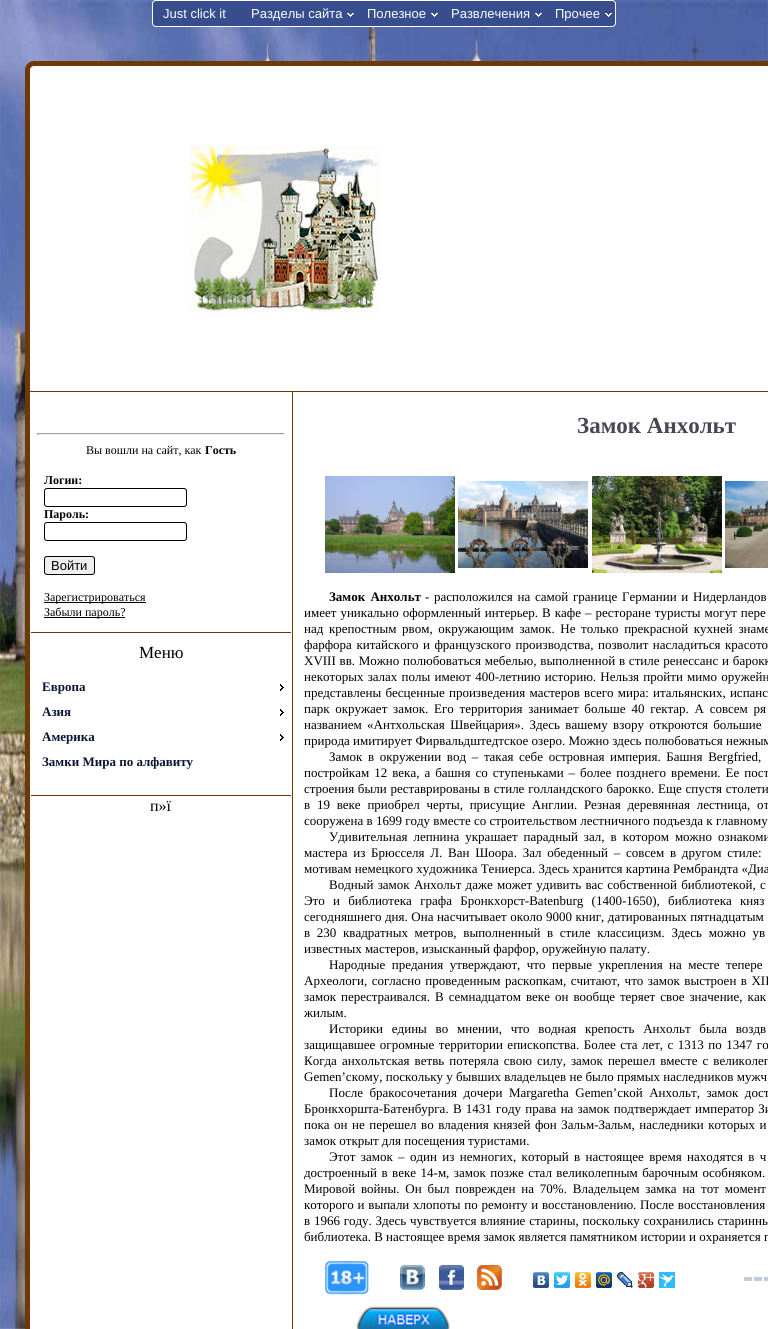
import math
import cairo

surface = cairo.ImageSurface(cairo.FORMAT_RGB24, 768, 1329)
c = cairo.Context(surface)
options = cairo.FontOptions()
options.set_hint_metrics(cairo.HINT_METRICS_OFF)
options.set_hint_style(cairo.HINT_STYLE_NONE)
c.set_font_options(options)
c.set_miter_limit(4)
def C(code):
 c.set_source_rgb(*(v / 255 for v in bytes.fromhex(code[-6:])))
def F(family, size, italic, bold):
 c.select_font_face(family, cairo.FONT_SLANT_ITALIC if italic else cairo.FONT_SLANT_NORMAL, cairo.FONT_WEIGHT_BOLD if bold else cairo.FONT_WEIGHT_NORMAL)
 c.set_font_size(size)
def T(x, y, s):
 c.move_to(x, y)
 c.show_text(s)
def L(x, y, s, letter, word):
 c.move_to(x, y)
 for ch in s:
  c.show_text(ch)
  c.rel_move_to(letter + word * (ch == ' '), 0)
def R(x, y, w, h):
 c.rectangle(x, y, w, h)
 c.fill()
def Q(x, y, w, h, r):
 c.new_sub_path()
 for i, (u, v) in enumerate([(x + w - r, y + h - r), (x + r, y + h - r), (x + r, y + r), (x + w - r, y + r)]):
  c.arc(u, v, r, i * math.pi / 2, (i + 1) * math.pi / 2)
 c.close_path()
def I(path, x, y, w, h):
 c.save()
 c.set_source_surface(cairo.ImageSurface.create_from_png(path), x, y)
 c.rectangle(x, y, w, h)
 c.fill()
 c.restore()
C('ffffff')
c.paint()
I('1.png',0,0,768,1329)
C('374d8d')
Q(152.5,.5,463,26,3.5)
c.fill_preserve()
C('ffffff')
c.set_line_width(1)
c.stroke()
F('Liberation Sans',13,0,0)
T(163,18,'Just click it')
I('2.png',347,13,7,4)
T(251,18,'Разделы сайта')
I('2.png',431,13,7,4)
T(367,18,'Полезное')
I('2.png',535,13,7,4)
T(451,18,'Развлечения')
I('2.png',605,13,7,4)
T(555,18,'Прочее')
Q(27.5,63.5,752,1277,6.5)
c.fill_preserve()
C('6d3907')
c.set_line_width(5)
c.stroke()
R(30,391,738,1)
I('3.png',190,146,190,166)
R(292,392,1,937)
R(31,632,260,1)
C('9f9f9f')
R(37,433,248,1)
C('eeeeee')
R(284,433,1,2)
R(37,434,248,1)
C('9f9f9f')
R(37,433,1,2)
F('Liberation Serif',12,0,0)
C('000000')
T(86,454,'Вы вошли на сайт, как')
F('Liberation Serif',12,0,1)
T(205,454,'Гость')
T(44,484,'Логин:')
Q(44.5,488.5,142,18,2.5)
c.set_line_width(1)
c.stroke()
T(44,518,'Пароль:')
Q(44.5,522.5,142,18,2.5)
c.stroke()
C('efefef')
Q(44.5,556.5,50,18,2.5)
c.fill_preserve()
C('000000')
c.stroke()
F('Liberation Sans',13,0,0)
T(51,570,'Войти')
R(44,602,102,1)
F('Liberation Serif',12,0,0)
T(44,601,'Зарегистрироваться')
R(44,617,81,1)
T(44,616,'Забыли пароль?')
F('Liberation Serif',17,0,0)
T(139,658,'Меню')
C('6d3907')
R(31,795,260,1)
I('4.png',280,684,4,7)
F('Liberation Serif',13,0,1)
C('0a1433')
T(42,691,'Европа')
I('4.png',280,709,4,7)
T(42,716,'Азия')
I('4.png',280,734,4,7)
T(42,741,'Америка')
T(42,766,'Замки Мира по алфавиту')
F('Liberation Serif',16,0,0)
C('000000')
T(150,811,'п»ї')
F('Liberation Serif',23,0,1)
C('464750')
T(577,433,'Замок Анхольт')
I('5.png',325,476,130,97)
I('6.png',458,481,130,87)
I('7.png',592,476,130,97)
I('8.png',725,481,43,87)
F('Liberation Serif',13,0,1)
C('000000')
L(329,601,'Замок Анхольт',0,2)
F('Liberation Serif',13,0,0)
L(425,601,'- расположился на самой границе Германии и Нидерландов',0,1.5)
L(304,617,'имеет уникально оформленный интерьер. В кафе – ресторане туристы могут пере',0,.75)
L(304,633,'над крепостным рвом, окружающим замок. Не только прекрасной кухней знаме',0,2.4)
L(304,649,'фарфора китайского и французского производства, позволит насладиться красото',0,1.25)
L(304,665,'XVIII вв. Можно полюбоваться мебелью, выполненной в стиле ренессанс и барокк',0,.5)
L(304,681,'некоторых залах полы имеют 400-летнию историю. Нельзя пройти мимо оружейн',0,1)
L(304,697,'представлены бесценные произведения мастеров всего мира: итальянских, испанс',0,1)
L(304,713,'парк окружает замок. Его территория занимает больше 40 гектар. А совсем ря',0,2.5)
L(304,729,'названием «Антхольская Швейцария». Здесь вашему взору откроются большие',0,2.1)
T(304,745,'природа имитирует Фирвальдштедтское озеро. Можно здесь полюбоваться нежным')
L(329,761,'Замок в окружении вод – такая себе островная империя. Башня Bergfried,',0,2.4)
L(304,777,'постройкам 12 века, а башня со ступеньками – более позднего времени. Ее пост',0,1.75)
L(304,793,'строения были реставрированы в стиле голландского барокко. Еще спустя столети',0,.5)
L(304,809,'в 19 веке приобрел черты, присущие Англии. Резная деревянная лестница, от',0,3.5)
T(304,825,'сооружена в 1699 году вместе со строительством лестничного подъезда к главному')
L(329,841,'Удивительная лепнина украшает парадный зал, в котором можно ознакоми',0,2.75)
L(304,857,'мастера из Брюсселя Л. Ван Шоора. Зал обеденный – совсем в другом стиле:',0,2.5)
T(304,873,'мотивам немецкого художника Тениерса. Здесь хранится картина Рембрандта «Диа')
L(329,889,'Водный замок Анхольт даже может удивить вас собственной библиотекой, с',0,1)
L(304,905,'Это и библиотека графа Бронкхорст-Batenburg (1400-1650), библиотека княз',0,5)
L(304,921,'сегодняшнего дня. Она насчитывает около 9000 книг, датированных пятнадцатым',0,.25)
L(304,937,'в 230 квадратных метров, выполненный в стиле классицизм. Здесь можно ув',0,3.4)
T(304,953,'известных мастеров, изысканный фарфор, оружейную палату.')
L(329,969,'Народные предания утверждают, что первые укрепления на месте тепере',0,3.25)
L(304,985,'Археологи, согласно проведенным раскопкам, считают, что замок выстроен в XII',0,1.25)
L(304,1001,'замок перестраивался. В семнадцатом веке он вообще теряет свое значение, как',0,1.75)
T(304,1017,'жилым.')
L(329,1033,'Историки едины во мнении, что водная крепость Анхольт была воздв',0,5.5)
L(304,1049,'защищавшее огромные территории епископства. Более ста лет, с 1313 по 1347 го',0,1.25)
L(304,1065,'Когда анхольтская ветвь потеряла свою силу, замок перешел вместе с великолеп',0,1.75)
T(304,1081,'Gemen’скому, поскольку у бывших владельцев не было прямых наследников мужч')
L(329,1097,'После бракосочетания дочери Margaretha Gemen’ской Анхольт, замок дост',0,3.25)
L(304,1113,'Бронкхоршта-Батенбурга. В 1431 году права на замок подтверждает император Зи',0,1)
L(304,1129,'пока он не перешел во владения князей фон Зальм-Зальм, наследники которых и',0,1.25)
T(304,1145,'замок открыт для посещения туристами.')
L(329,1161,'Этот замок – один из немногих, который в настоящее время находятся в ч',0,2.1)
L(304,1177,'достроенный в веке 14-м, замок позже стал великолепным барочным особняком.',0,1.25)
L(304,1193,'Мировой войны. Он был поврежден на 70%. Владельцем замка на тот момент',0,2.6)
L(304,1209,'которого и выпали хлопоты по ремонту и восстановлению. После восстановления',0,.5)
L(304,1225,'в 1966 году. Здесь чувствуется влияние старины, поскольку сохранились старинны',0,.5)
T(304,1241,'библиотека. В настоящее время замок является памятником истории и охраняется г')
I('9.png',324,1260,45,35)
I('10.png',400,1265,25,25)
I('11.png',439,1265,25,25)
I('12.png',477,1265,25,25)
I('13.png',533,1272,16,16)
I('14.png',554,1272,16,16)
I('15.png',575,1272,16,16)
I('16.png',596,1272,16,16)
I('17.png',617,1272,16,16)
I('18.png',638,1272,16,16)
I('19.png',659,1272,16,16)
I('20.png',744,1277,24,4)
I('21.png',356,1306,94,23)
surface.write_to_png('o.png')
